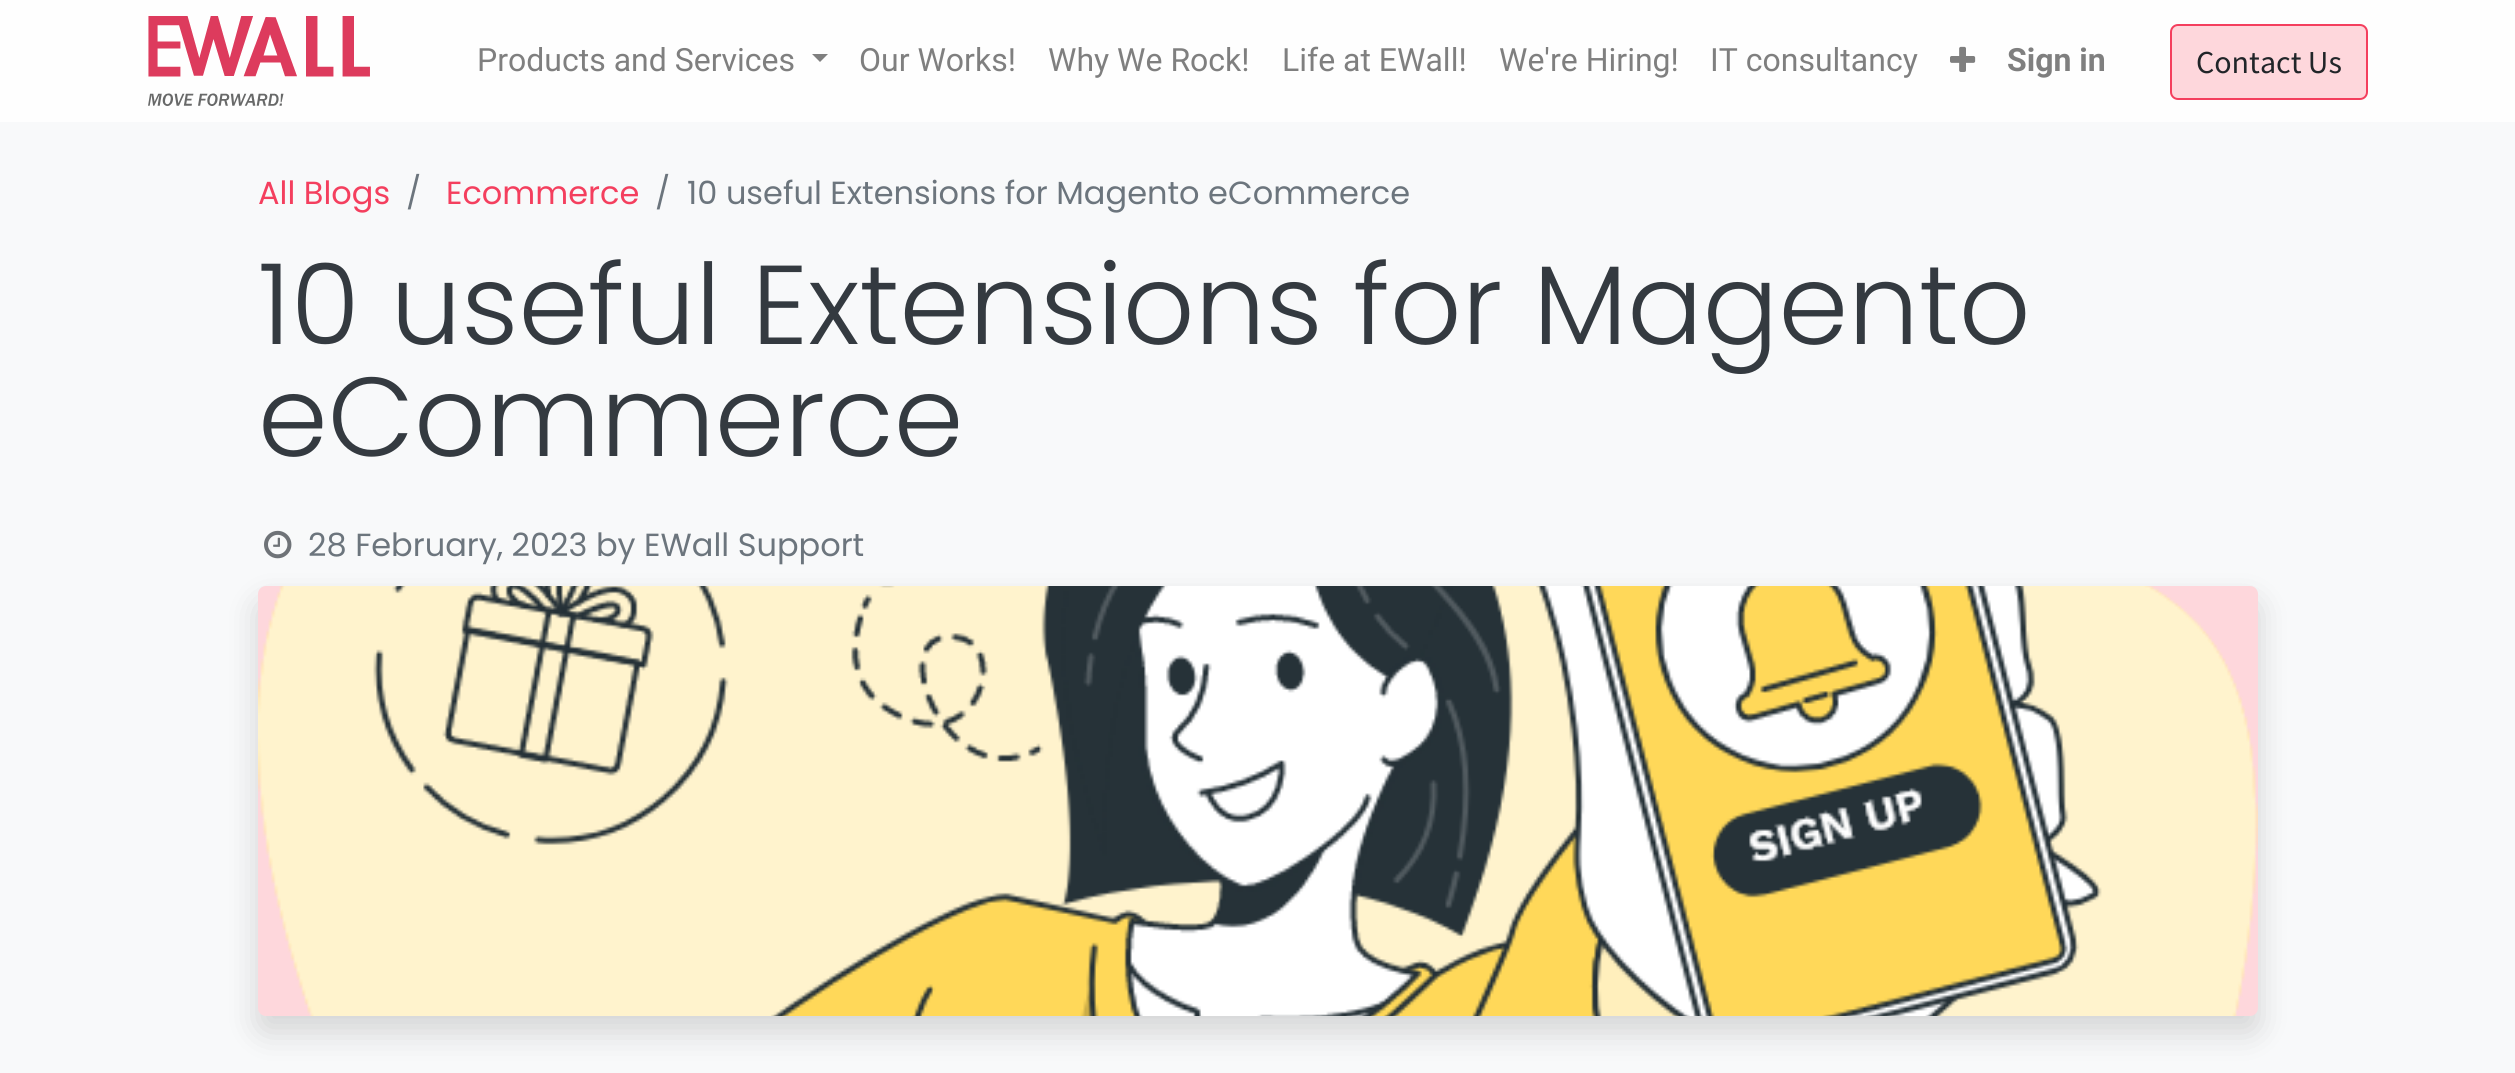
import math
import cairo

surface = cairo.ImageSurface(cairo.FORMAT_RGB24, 2515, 1073)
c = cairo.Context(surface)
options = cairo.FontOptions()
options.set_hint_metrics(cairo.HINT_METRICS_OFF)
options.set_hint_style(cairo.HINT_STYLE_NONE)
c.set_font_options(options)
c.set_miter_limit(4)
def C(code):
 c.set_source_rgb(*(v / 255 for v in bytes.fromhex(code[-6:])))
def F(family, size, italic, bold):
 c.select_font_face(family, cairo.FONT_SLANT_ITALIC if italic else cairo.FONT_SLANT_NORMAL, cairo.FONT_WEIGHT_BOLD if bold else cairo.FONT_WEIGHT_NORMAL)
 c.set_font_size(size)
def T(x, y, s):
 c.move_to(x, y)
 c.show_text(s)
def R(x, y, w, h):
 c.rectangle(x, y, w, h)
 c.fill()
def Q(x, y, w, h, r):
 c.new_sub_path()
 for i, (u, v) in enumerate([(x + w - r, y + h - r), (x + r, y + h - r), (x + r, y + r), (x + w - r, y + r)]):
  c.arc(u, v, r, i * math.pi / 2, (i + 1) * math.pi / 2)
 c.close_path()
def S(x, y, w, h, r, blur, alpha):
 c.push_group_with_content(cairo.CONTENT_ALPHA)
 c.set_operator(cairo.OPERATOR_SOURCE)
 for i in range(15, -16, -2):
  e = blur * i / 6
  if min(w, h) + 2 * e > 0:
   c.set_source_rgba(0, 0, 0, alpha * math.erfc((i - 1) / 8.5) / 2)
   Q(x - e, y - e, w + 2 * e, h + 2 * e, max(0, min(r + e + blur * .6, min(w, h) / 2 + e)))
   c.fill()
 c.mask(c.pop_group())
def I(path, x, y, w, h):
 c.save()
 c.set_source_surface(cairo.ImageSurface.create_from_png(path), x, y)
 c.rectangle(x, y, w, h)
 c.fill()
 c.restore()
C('f8f9fa')
c.paint()
C('fefefe')
R(0,0,2515,122)
I('1.png',148,16,222,90)
F('Roboto',32,0,0)
C('7f7f7f')
T(477,71,'Products and Services')
c.new_path()
c.move_to(812,54)
c.line_to(828,54)
c.line_to(820,62)
c.close_path()
c.fill()
T(859,71,'Our Works!')
T(1048,71,'Why We Rock!')
T(1282,71,'Life at EWall!')
T(1499,71,'We\'re Hiring!')
T(1710,71,'IT consultancy')
I('2.png',1950,46,26,26)
F('Roboto',32,0,1)
T(2007,71,'Sign in')
C('fed7dc')
Q(2171,25,196,74,7)
c.fill_preserve()
C('f43f5e')
c.stroke()
F('Source Sans Pro',32,0,0)
C('212529')
T(2196,73,'Contact Us')
F('Poppins',32,0,0)
C('f43f5e')
T(258,204,'All Blogs')
C('6c757d')
T(406,204,'/')
C('f43f5e')
T(446,204,'Ecommerce')
C('6c757d')
T(655,204,'/')
T(687,204,'10 useful Extensions for Magento eCommerce')
F('Poppins Light',112,0,0)
C('343a40')
T(258,344,'10 useful Extensions for Magento')
T(258,456,'eCommerce')
I('3.png',264,530,28,29)
F('Poppins',32,0,0)
C('6c757d')
T(308,556,'28 February, 2023 by EWall Support')
C('000000')
S(258,602,2000,430,8,16,.15)
C('fed7dc')
Q(258,586,2000,430,8)
c.fill()
I('4.png',258,586,2000,430)
surface.write_to_png('o.png')
